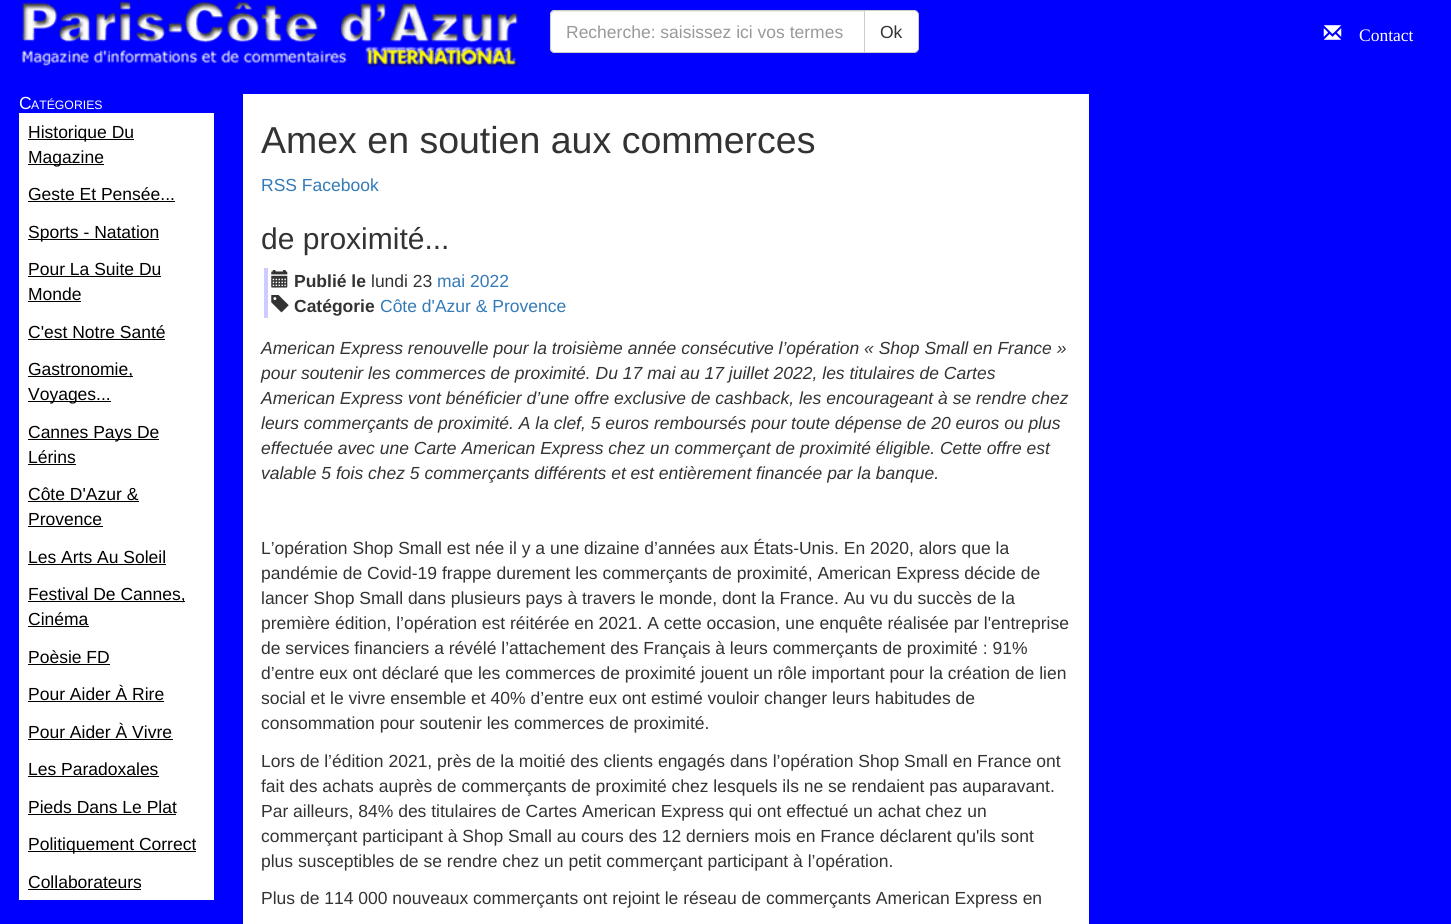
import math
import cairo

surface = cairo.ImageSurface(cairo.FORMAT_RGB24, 1451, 924)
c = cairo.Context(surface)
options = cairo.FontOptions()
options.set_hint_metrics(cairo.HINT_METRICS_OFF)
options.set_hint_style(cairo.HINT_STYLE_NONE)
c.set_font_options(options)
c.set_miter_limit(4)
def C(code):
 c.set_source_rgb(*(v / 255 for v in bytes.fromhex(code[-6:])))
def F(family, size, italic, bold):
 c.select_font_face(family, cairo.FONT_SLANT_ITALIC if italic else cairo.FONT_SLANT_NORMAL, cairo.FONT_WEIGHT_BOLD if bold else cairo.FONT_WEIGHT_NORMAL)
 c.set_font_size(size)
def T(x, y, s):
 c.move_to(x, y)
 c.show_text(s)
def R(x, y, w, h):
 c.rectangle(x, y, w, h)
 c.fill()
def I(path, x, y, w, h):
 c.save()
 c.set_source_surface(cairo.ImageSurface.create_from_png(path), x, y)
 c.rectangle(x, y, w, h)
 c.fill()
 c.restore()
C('0000ff')
c.paint()
I('1.png',21,1,497,67)
C('ffffff')
c.new_path()
c.move_to(555,10)
c.line_to(865,10)
c.line_to(865,53)
c.line_to(555,53)
c.curve_to(552,53,550,51,550,48)
c.line_to(550,15)
c.curve_to(550,12,552,10,555,10)
c.close_path()
c.fill()
C('ececec')
c.new_path()
c.move_to(555,12)
c.line_to(864,12)
c.line_to(864,11)
c.line_to(555,11)
c.curve_to(553,11,551,13,551,15)
c.line_to(551,16)
c.curve_to(551,14,553,12,555,12)
c.close_path()
c.fill()
c.new_path()
c.move_to(555,10.5)
c.line_to(864.5,10.5)
c.line_to(864.5,52.5)
c.line_to(555,52.5)
c.curve_to(552.5,52.5,550.5,50.5,550.5,48)
c.line_to(550.5,15)
c.curve_to(550.5,12.5,552.5,10.5,555,10.5)
c.close_path()
C('cccccc')
c.set_line_width(1)
c.stroke()
F('Liberation Sans',17.5,0,0)
C('999999')
T(566,38,'Recherche: saisissez ici vos termes')
C('ffffff')
c.new_path()
c.move_to(864.5,10.5)
c.line_to(914,10.5)
c.curve_to(916.5,10.5,918.5,12.5,918.5,15)
c.line_to(918.5,48)
c.curve_to(918.5,50.5,916.5,52.5,914,52.5)
c.line_to(864.5,52.5)
c.close_path()
c.fill_preserve()
C('cccccc')
c.stroke()
C('333333')
T(880,38,'Ok')
I('2.png',1323,25,19,15)
F('Liberation Serif',17.5,0,0)
C('ffffff')
T(1359,41,'Contact')
F('Liberation Sans',17.5,0,0)
T(19,109,'C')
F('Liberation Sans',12.25,0,0)
T(31,109,'ATÉGORIES')
R(19,113,195,787)
C('000000')
R(28,139,106,1)
F('Liberation Sans',17.5,0,0)
T(28,138,'Historique Du')
R(28,164,76,1)
T(28,163,'Magazine')
T(28,200,'Geste Et Pensée...')
R(28,201,147,1)
R(28,239,131,1)
T(28,238,'Sports - Natation')
T(28,275,'Pour La Suite Du')
R(28,276,133,1)
T(28,300,'Monde')
R(28,301,53,1)
T(28,338,'C\'est Notre Santé')
R(28,339,137,1)
R(28,376,105,1)
T(28,375,'Gastronomie,')
R(28,401,83,1)
T(28,400,'Voyages...')
R(28,439,131,1)
T(28,438,'Cannes Pays De')
T(28,463,'Lérins')
R(28,464,48,1)
T(28,500,'Côte D\'Azur &')
R(28,501,111,1)
T(28,525,'Provence')
R(28,526,75,1)
T(28,563,'Les Arts Au Soleil')
R(28,564,138,1)
R(28,601,157,1)
T(28,600,'Festival De Cannes,')
T(28,625,'Cinéma')
R(28,626,61,1)
T(28,663,'Poèsie FD')
R(28,664,82,1)
T(28,700,'Pour Aider À Rire')
R(28,701,136,1)
T(28,738,'Pour Aider À Vivre')
R(28,739,145,1)
T(28,775,'Les Paradoxales')
R(28,776,131,1)
T(28,813,'Pieds Dans Le Plat')
R(28,814,148,1)
R(28,851,168,1)
T(28,850,'Politiquement Correct')
T(28,888,'Collaborateurs')
R(28,889,113,1)
C('ffffff')
R(243,94,846,830)
F('Liberation Sans',37.5,0,0)
C('333333')
T(261,153,'Amex en soutien aux commerces')
F('Liberation Sans',17.5,0,0)
C('337ab7')
T(261,191,'RSS Facebook')
F('Liberation Sans',30,0,0)
C('333333')
T(261,249,'de proximité...')
C('ccccff')
R(264,268,4,50)
I('3.png',271,270,17,18)
F('Liberation Sans',17.5,0,1)
C('333333')
T(294,287,'Publié le')
F('Liberation Sans',17.5,0,0)
T(371,287,'lundi 23')
C('337ab7')
T(437,287,'mai 2022')
I('4.png',271,295,18,18)
F('Liberation Sans',17.5,0,1)
C('333333')
T(294,312,'Catégorie')
F('Liberation Sans',17.5,0,0)
C('337ab7')
T(380,312,'Côte d\'Azur & Provence')
F('Liberation Sans',17.5,1,0)
C('333333')
T(261,354,'American Express renouvelle pour la troisième année consécutive l’opération « Shop Small en France »')
T(261,379,'pour soutenir les commerces de proximité. Du 17 mai au 17 juillet 2022, les titulaires de Cartes')
T(261,404,'American Express vont bénéficier d’une offre exclusive de cashback, les encourageant à se rendre chez')
T(261,429,'leurs commerçants de proximité. A la clef, 5 euros remboursés pour toute dépense de 20 euros ou plus')
T(261,454,'effectuée avec une Carte American Express chez un commerçant de proximité éligible. Cette offre est')
T(261,479,'valable 5 fois chez 5 commerçants différents et est entièrement financée par la banque.')
F('Liberation Sans',17.5,0,0)
T(261,554,'L’opération Shop Small est née il y a une dizaine d’années aux États-Unis. En 2020, alors que la')
T(261,579,'pandémie de Covid-19 frappe durement les commerçants de proximité, American Express décide de')
T(261,604,'lancer Shop Small dans plusieurs pays à travers le monde, dont la France. Au vu du succès de la')
T(261,629,'première édition, l’opération est réitérée en 2021. A cette occasion, une enquête réalisée par l\'entreprise')
T(261,654,'de services financiers a révélé l’attachement des Français à leurs commerçants de proximité : 91%')
T(261,679,'d’entre eux ont déclaré que les commerces de proximité jouent un rôle important pour la création de lien')
T(261,704,'social et le vivre ensemble et 40% d’entre eux ont estimé vouloir changer leurs habitudes de')
T(261,729,'consommation pour soutenir les commerces de proximité.')
T(261,767,'Lors de l’édition 2021, près de la moitié des clients engagés dans l’opération Shop Small en France ont')
T(261,792,'fait des achats auprès de commerçants de proximité chez lesquels ils ne se rendaient pas auparavant.')
T(261,817,'Par ailleurs, 84% des titulaires de Cartes American Express qui ont effectué un achat chez un')
T(261,842,'commerçant participant à Shop Small au cours des 12 derniers mois en France déclarent qu\'ils sont')
T(261,867,'plus susceptibles de se rendre chez un petit commerçant participant à l’opération.')
T(261,904,'Plus de 114 000 nouveaux commerçants ont rejoint le réseau de commerçants American Express en')
surface.write_to_png('o.png')
